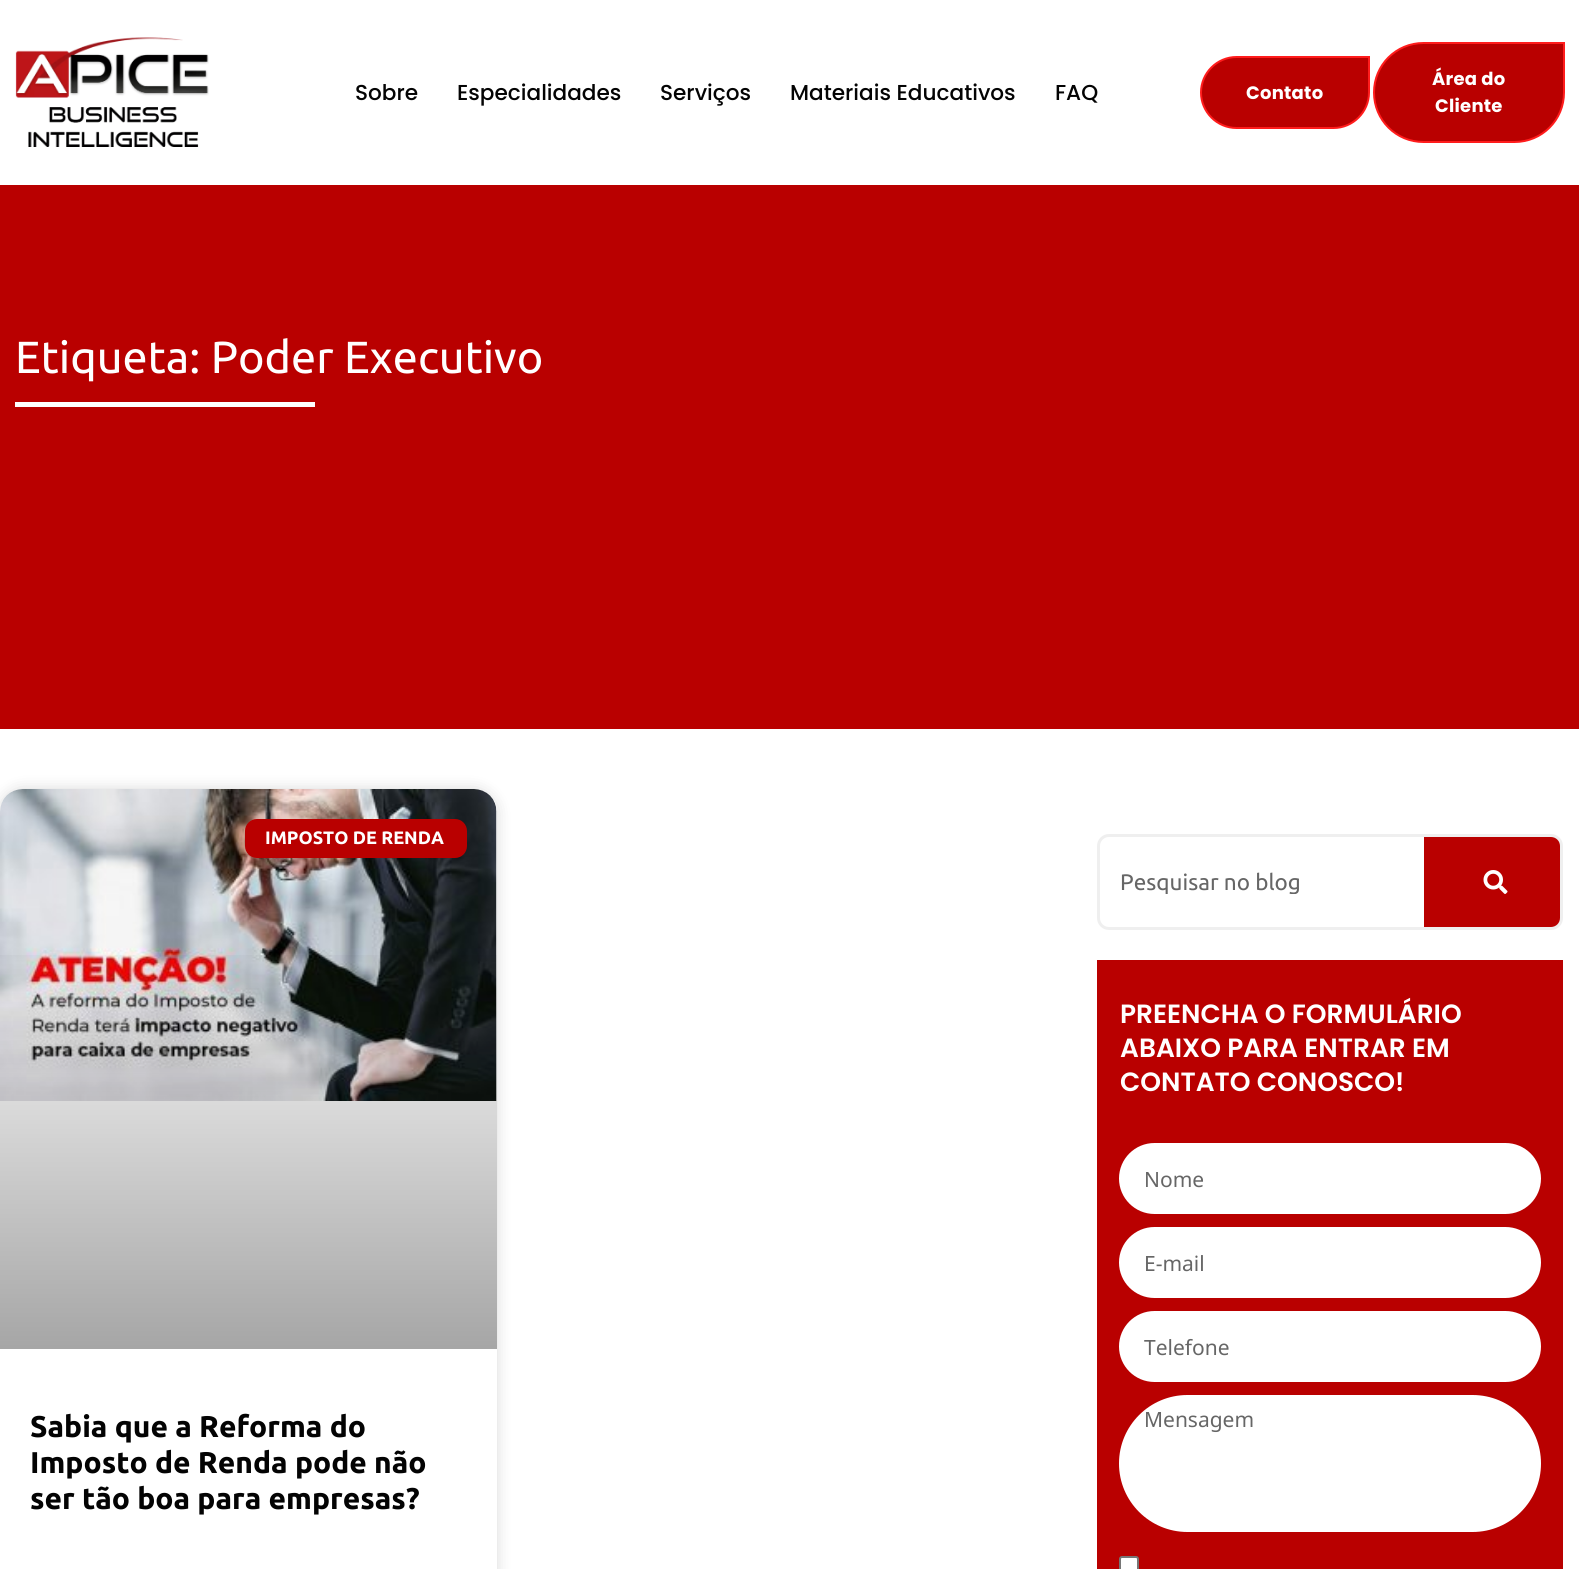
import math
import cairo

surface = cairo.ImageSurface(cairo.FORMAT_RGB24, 1579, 1569)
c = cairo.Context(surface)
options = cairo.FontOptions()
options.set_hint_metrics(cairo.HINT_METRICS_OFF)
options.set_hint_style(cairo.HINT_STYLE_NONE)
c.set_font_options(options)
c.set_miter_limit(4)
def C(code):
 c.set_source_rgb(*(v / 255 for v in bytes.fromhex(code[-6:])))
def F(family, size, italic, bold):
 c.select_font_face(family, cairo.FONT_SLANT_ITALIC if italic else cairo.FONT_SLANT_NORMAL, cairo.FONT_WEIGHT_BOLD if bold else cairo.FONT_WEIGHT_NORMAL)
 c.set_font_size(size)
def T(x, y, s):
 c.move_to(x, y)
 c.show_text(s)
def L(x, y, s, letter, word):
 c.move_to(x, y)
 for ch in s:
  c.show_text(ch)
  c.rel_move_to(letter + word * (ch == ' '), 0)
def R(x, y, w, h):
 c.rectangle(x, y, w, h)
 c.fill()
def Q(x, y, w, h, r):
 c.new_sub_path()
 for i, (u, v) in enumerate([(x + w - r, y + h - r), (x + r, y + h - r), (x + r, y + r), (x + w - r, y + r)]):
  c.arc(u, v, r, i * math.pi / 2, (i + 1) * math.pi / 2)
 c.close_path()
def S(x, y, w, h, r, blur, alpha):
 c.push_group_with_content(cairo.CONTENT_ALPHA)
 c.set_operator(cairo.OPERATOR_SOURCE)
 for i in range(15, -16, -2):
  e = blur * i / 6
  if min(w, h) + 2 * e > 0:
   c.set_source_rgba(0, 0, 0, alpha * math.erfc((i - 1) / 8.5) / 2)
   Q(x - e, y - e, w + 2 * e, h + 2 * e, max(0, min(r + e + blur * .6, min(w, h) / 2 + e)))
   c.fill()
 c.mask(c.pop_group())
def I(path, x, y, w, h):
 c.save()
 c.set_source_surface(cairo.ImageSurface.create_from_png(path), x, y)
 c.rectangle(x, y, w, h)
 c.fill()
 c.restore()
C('ffffff')
c.paint()
I('1.png',15,37,194,110)
F('Poppins Medium',21.6,0,0)
C('030303')
T(355,100,'Sobre')
T(457,100,'Especialidades')
T(660,100,'Serviços')
T(790,100,'Materiais Educativos')
T(1055,100,'FAQ')
C('b90000')
c.new_path()
c.move_to(1236.5,57)
c.line_to(1369,57)
c.line_to(1369,92.5)
c.curve_to(1369,112,1353,128,1333.5,128)
c.line_to(1236.5,128)
c.curve_to(1217,128,1201,112,1201,92.5)
c.curve_to(1201,73,1217,57,1236.5,57)
c.close_path()
c.fill_preserve()
C('ff1c1c')
c.stroke()
F('Poppins',18,0,1)
C('ffffff')
L(1246,99,'Contato',.25,0)
C('b90000')
c.new_path()
c.move_to(1423.5,43)
c.line_to(1564,43)
c.line_to(1564,92.5)
c.curve_to(1564,120,1542,142,1514.5,142)
c.line_to(1423.5,142)
c.curve_to(1396,142,1374,120,1374,92.5)
c.curve_to(1374,65,1396,43,1423.5,43)
c.close_path()
c.fill_preserve()
C('ff1c1c')
c.stroke()
C('ffffff')
L(1432,85,'Área do',.25,0)
L(1435,112,'Cliente',.25,0)
C('b90000')
R(0,185,1579,544)
F('Ubuntu',45,0,0)
C('ffffff')
T(15,373,'Etiqueta: Poder Executivo')
R(15,402,300,5)
C('000000')
S(0,789,497,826,23,7.5,.15)
C('ffffff')
Q(0,789,497,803,23)
c.fill()
I('2.png',0,789,497,312)
gradient = cairo.LinearGradient(248,1349,248,789)
gradient.add_color_stop_rgba(0,0,0,0,.35)
gradient.add_color_stop_rgba(.75,0,0,0,0)
c.set_source(gradient)
R(0,955,497,394)
C('b90000')
Q(245,819,222,39,12)
c.fill()
F('Ubuntu',18,0,1)
C('ffffff')
T(265,844,'IMPOSTO DE RENDA')
F('Ubuntu',30,0,1)
C('030303')
T(30,1437,'Sabia que a Reforma do')
T(30,1473,'Imposto de Renda pode não')
T(30,1509,'ser tão boa para empresas?')
Q(1098.5,835.5,463,93,10.5)
C('efefef')
c.set_line_width(3)
c.stroke()
c.save()
c.rectangle(1121,869,262,25)
c.clip()
F('Ubuntu',22.5,0,0)
C('666666')
T(1120,890,'Pesquisar no blog')
c.restore()
C('b90000')
c.new_path()
c.move_to(1424,837)
c.line_to(1551,837)
c.curve_to(1556,837,1560,841,1560,846)
c.line_to(1560,918)
c.curve_to(1560,923,1556,927,1551,927)
c.line_to(1424,927)
c.close_path()
c.fill()
I('3.png',1483,870,25,24)
R(1097,960,466,609)
F('Poppins SemiBold',26.4,0,0)
C('ffffff')
T(1120,1023,'PREENCHA O FORMULÁRIO')
T(1120,1057,'ABAIXO PARA ENTRAR EM')
T(1120,1091,'CONTATO CONOSCO!')
Q(1119,1143,422,71,35.5)
c.fill()
F('Noto Sans',21,0,0)
C('666666')
T(1144,1187,'Nome')
C('ffffff')
Q(1119,1227,422,71,35.5)
c.fill()
C('666666')
T(1144,1271,'E-mail')
C('ffffff')
Q(1119,1311,422,71,35.5)
c.fill()
C('666666')
T(1144,1355,'Telefone')
C('ffffff')
Q(1119,1395,422,137,68.5)
c.fill()
C('666666')
T(1144,1427,'Mensagem')
C('ffffff')
Q(1120,1557,18,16,2)
c.fill_preserve()
C('767676')
c.set_line_width(2)
c.stroke()
surface.write_to_png('o.png')
